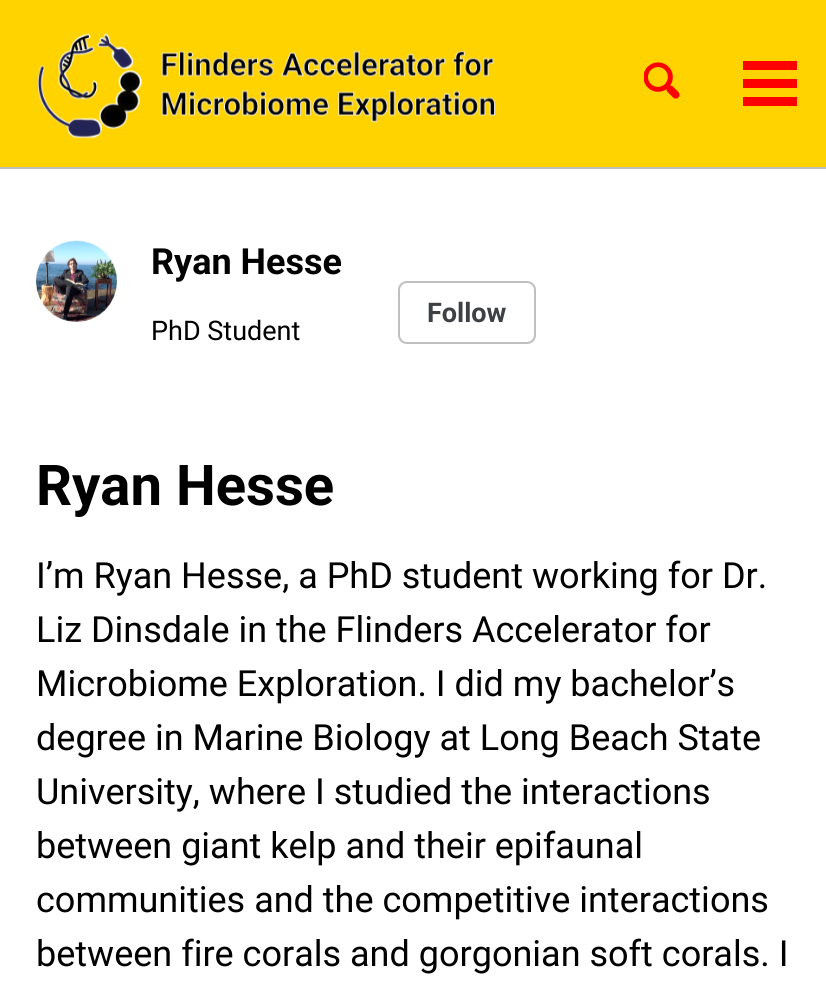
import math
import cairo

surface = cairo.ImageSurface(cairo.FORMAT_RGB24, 826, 984)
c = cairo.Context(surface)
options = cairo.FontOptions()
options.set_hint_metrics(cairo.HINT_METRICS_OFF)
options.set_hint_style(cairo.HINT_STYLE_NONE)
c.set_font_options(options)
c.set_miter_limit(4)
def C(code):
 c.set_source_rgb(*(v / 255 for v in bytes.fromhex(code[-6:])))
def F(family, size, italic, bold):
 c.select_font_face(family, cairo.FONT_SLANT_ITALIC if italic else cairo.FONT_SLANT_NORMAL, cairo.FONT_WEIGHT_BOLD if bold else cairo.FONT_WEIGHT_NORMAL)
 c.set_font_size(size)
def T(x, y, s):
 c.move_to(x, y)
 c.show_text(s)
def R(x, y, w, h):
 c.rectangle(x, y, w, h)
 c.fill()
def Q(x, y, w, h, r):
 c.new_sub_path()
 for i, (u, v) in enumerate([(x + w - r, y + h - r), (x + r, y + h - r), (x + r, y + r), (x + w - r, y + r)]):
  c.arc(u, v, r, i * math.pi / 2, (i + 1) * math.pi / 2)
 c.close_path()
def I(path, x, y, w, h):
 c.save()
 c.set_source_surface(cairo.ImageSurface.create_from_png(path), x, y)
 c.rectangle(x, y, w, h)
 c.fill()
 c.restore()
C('ffffff')
c.paint()
C('ffd300')
R(0,0,826,167)
C('bfbfbf')
R(0,167,826,2)
I('1.png',37,33,458,106)
I('2.png',644,62,36,37)
C('ff0000')
R(743,79,54,9)
R(743,61,54,9)
R(743,97,54,9)
I('3.png',36,240,81,82)
F('Roboto',36,0,1)
C('000000')
T(151,274,'Ryan Hesse')
F('Roboto',27,0,0)
T(151,340,'PhD Student')
Q(399,282,136,61,8)
C('bfbfbf')
c.stroke()
F('Roboto',27,0,1)
C('3d4144')
T(427,322,'Follow')
F('Roboto',56.25,0,1)
C('000000')
T(36,505,'Ryan Hesse')
F('Roboto',36,0,0)
T(36,588,'I’m Ryan Hesse, a PhD student working for Dr.')
T(36,642,'Liz Dinsdale in the Flinders Accelerator for')
T(36,696,'Microbiome Exploration. I did my bachelor’s')
T(36,750,'degree in Marine Biology at Long Beach State')
T(36,804,'University, where I studied the interactions')
T(36,858,'between giant kelp and their epifaunal')
T(36,912,'communities and the competitive interactions')
T(36,966,'between fire corals and gorgonian soft corals. I')
surface.write_to_png('o.png')
